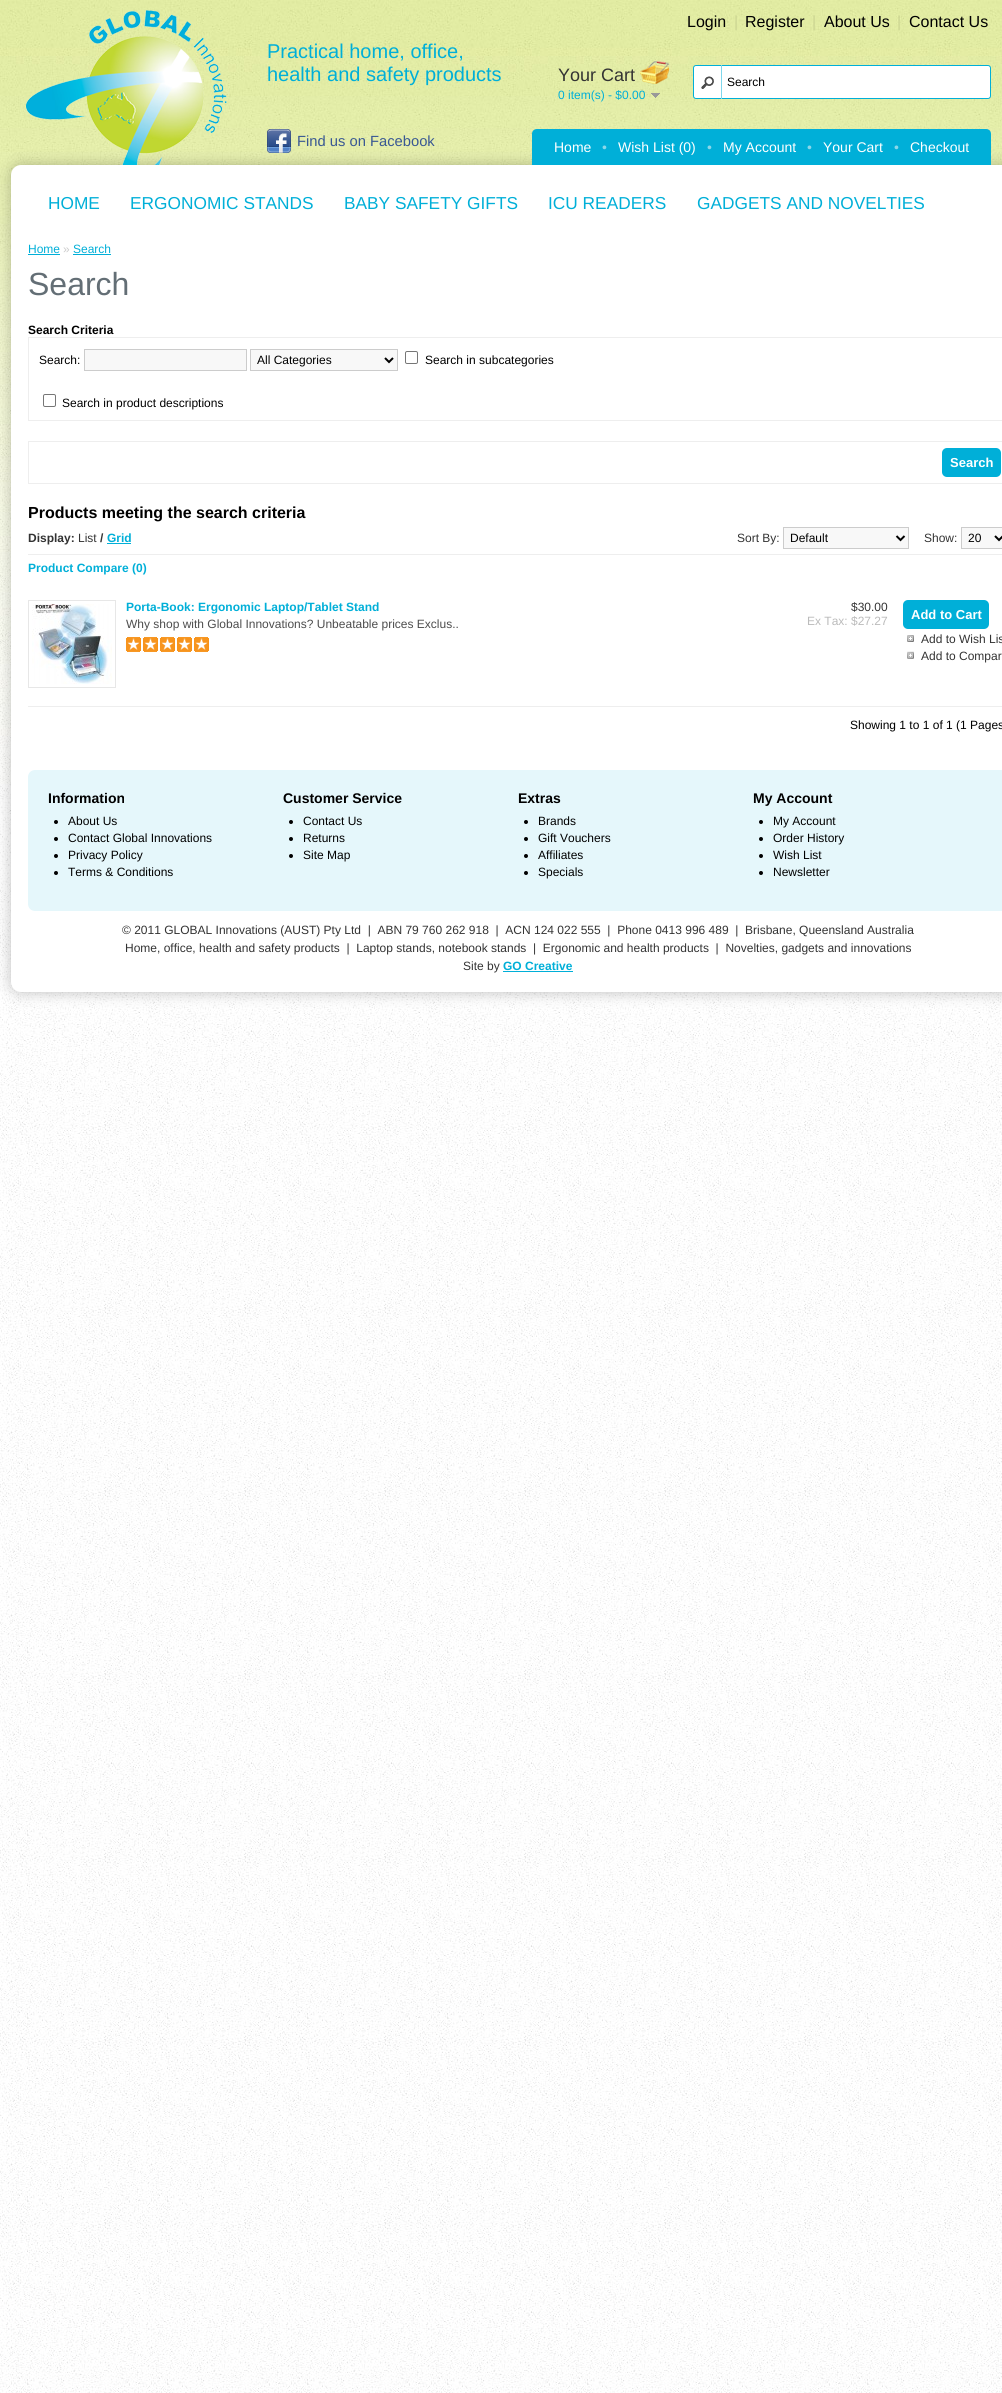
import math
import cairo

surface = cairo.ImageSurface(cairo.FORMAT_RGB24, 1002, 2393)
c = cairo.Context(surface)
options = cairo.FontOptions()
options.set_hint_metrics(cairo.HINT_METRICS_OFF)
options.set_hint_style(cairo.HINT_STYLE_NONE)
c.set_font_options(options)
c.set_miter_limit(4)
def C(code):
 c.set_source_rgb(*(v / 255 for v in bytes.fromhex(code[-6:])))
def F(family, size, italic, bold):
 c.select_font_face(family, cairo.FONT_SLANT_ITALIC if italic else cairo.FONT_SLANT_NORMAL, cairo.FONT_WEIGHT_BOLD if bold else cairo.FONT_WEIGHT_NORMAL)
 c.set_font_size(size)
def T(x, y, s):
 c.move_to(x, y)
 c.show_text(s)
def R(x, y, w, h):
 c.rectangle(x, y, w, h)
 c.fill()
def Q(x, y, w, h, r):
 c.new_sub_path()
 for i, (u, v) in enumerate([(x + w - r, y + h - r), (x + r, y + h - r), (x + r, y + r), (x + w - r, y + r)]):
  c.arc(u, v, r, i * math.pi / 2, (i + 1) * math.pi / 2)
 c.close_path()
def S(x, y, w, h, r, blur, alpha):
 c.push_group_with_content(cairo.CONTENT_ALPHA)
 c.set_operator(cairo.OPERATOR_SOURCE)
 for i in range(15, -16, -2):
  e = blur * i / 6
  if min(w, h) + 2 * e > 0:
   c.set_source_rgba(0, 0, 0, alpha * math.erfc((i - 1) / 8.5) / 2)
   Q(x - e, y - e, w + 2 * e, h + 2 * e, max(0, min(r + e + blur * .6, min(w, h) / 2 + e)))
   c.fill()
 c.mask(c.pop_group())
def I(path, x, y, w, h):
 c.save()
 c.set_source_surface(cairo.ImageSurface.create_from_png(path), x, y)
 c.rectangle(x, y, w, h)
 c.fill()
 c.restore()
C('ffffff')
c.paint()
I('1.png',0,817,1002,1576)
I('2.png',0,0,1002,817)
C('000000')
S(11,165,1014,827,10,7.5,.25)
I('3.png',26,10,201,155)
F('Liberation Sans',16,0,0)
C('000000')
T(687,27,'Login')
C('ccd592')
T(734,27,'|')
C('000000')
T(745,27,'Register')
C('ccd592')
T(812,27,'|')
C('000000')
T(824,27,'About Us')
C('ccd592')
T(897,27,'|')
C('000000')
T(909,27,'Contact Us')
F('Liberation Sans',20,0,0)
C('00afd8')
T(267,58,'Practical home, office,')
T(267,81,'health and safety products')
I('4.png',267,129,24,24)
F('Liberation Sans',14.75,0,0)
C('395893')
T(297,146,'Find us on Facebook')
F('Liberation Sans',18,0,0)
C('333333')
T(558,81,'Your Cart')
F('Liberation Sans',12,0,0)
C('00afd8')
T(558,99,'0 item(s) - $0.00')
I('5.png',651,93,9,5)
I('6.png',640,61,29,23)
C('ffffff')
Q(693.5,65.5,297,33,2.5)
c.fill_preserve()
C('00afd8')
c.set_line_width(1)
c.stroke()
I('7.png',701,76,13,13)
C('7fd7eb')
R(721,65,1,34)
C('000000')
T(727,86,'Search')
C('00afd8')
c.new_path()
c.move_to(537,129)
c.line_to(986,129)
c.curve_to(989,129,991,131,991,134)
c.line_to(991,165)
c.line_to(532,165)
c.line_to(532,134)
c.curve_to(532,131,534,129,537,129)
c.close_path()
c.fill()
F('Liberation Sans',14,0,0)
C('ffffff')
T(554,152,'Home')
C('8bd7e9')
T(602,152,'•')
C('ffffff')
T(618,152,'Wish List (0)')
C('8bd7e9')
T(707,152,'•')
C('ffffff')
T(723,152,'My Account')
C('8bd7e9')
T(807,152,'•')
C('ffffff')
T(823,152,'Your Cart')
C('8bd7e9')
T(894,152,'•')
C('ffffff')
T(910,152,'Checkout')
Q(11,165,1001,827,10)
c.fill()
F('Liberation Sans',17.3,0,0)
C('00afd8')
T(48,209,'HOME')
T(130,209,'ERGONOMIC STANDS')
T(344,209,'BABY SAFETY GIFTS')
T(548,209,'ICU READERS')
T(697,209,'GADGETS AND NOVELTIES')
F('Liberation Sans',12,0,0)
T(28,253,'Home')
R(28,254,32,1)
C('cccccc')
T(63,253,'»')
C('00afd8')
T(73,253,'Search')
R(73,254,38,1)
F('Liberation Sans',32,0,0)
C('636e75')
T(28,295,'Search')
F('Liberation Sans',12,0,1)
C('000000')
T(28,334,'Search Criteria')
c.rectangle(28.5,337.5,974,83)
C('eeeeee')
c.stroke()
F('Liberation Sans',12,0,0)
C('000000')
T(39,364,'Search:')
C('f8f8f8')
c.rectangle(84.5,349.5,162,21)
c.fill_preserve()
C('cccccc')
c.stroke()
C('f8f8f8')
c.rectangle(250.5,349.5,147,21)
c.fill_preserve()
C('cccccc')
c.stroke()
c.new_path()
c.move_to(385,358)
c.line_to(389,362)
c.line_to(393,358)
C('000000')
c.set_line_width(2)
c.stroke()
T(257,364,'All Categories')
Q(405.5,351.5,12,12,1.5)
C('767676')
c.set_line_width(1)
c.stroke()
C('000000')
T(425,364,'Search in subcategories')
Q(43.5,394.5,12,12,1.5)
C('767676')
c.stroke()
C('000000')
T(62,407,'Search in product descriptions')
c.rectangle(28.5,441.5,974,42)
C('eeeeee')
c.stroke()
C('00afd8')
Q(942,448,59,29,5)
c.fill()
F('Liberation Sans',13,0,1)
C('ffffff')
T(950,467,'Search')
F('Liberation Sans',16,0,1)
C('000000')
T(28,518,'Products meeting the search criteria')
C('eeeeee')
R(28,554,974,1)
F('Liberation Sans',12,0,1)
C('333333')
T(28,542,'Display:')
F('Liberation Sans',12,0,0)
T(78,542,'List')
F('Liberation Sans',12,0,1)
T(100,542,'/')
C('00afd8')
T(107,542,'Grid')
R(107,543,24,1)
F('Liberation Sans',12,0,0)
C('333333')
T(737,542,'Sort By:')
C('f8f8f8')
c.rectangle(783.5,527.5,125,21)
c.fill_preserve()
C('cccccc')
c.stroke()
c.new_path()
c.move_to(896.5,536)
c.line_to(900.5,540)
c.line_to(904.5,536)
C('000000')
c.set_line_width(2)
c.stroke()
T(790,542,'Default')
C('333333')
T(924,542,'Show:')
C('f8f8f8')
c.rectangle(961.5,527.5,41,21)
c.fill_preserve()
C('cccccc')
c.set_line_width(1)
c.stroke()
c.new_path()
c.move_to(995,536)
c.line_to(999,540)
c.line_to(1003,536)
C('000000')
c.set_line_width(2)
c.stroke()
T(968,542,'20')
F('Liberation Sans',12,0,1)
C('00afd8')
T(28,572,'Product Compare (0)')
c.rectangle(28.5,600.5,87,87)
C('e7e7e7')
c.set_line_width(1)
c.stroke()
I('8.png',32,604,80,80)
C('00afd8')
T(126,611,'Porta-Book: Ergonomic Laptop/Tablet Stand')
F('Liberation Sans',12,0,0)
C('333333')
T(851,611,'$30.00')
C('bbbbbb')
T(807,625,'Ex Tax: $27.27')
C('4d4d4d')
T(126,628,'Why shop with Global Innovations? Unbeatable prices Exclus..')
I('9.png',126,637,83,15)
C('00afd8')
Q(903,600,86,29,5)
c.fill()
F('Liberation Sans',13,0,1)
C('ffffff')
T(911,619,'Add to Cart')
I('10.png',907,635,7,7)
F('Liberation Sans',12,0,0)
C('333333')
T(921,643,'Add to Wish Lis')
I('11.png',907,651,7,8)
T(921,660,'Add to Compar')
C('eeeeee')
R(28,706,974,1)
C('000000')
T(850,729,'Showing 1 to 1 of 1 (1 Pages')
C('e5f7fb')
Q(28,770,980,141,7)
c.fill()
F('Liberation Sans',14,0,1)
C('000000')
T(48,803,'Information')
c.new_path()
c.arc(56,822,2,0,2 * math.pi)
c.fill()
F('Liberation Sans',12,0,0)
T(68,825,'About Us')
c.new_path()
c.arc(56,839,2,0,2 * math.pi)
c.fill()
T(68,842,'Contact Global Innovations')
c.new_path()
c.arc(56,856,2,0,2 * math.pi)
c.fill()
T(68,859,'Privacy Policy')
c.new_path()
c.arc(56,873,2,0,2 * math.pi)
c.fill()
T(68,876,'Terms & Conditions')
F('Liberation Sans',14,0,1)
T(283,803,'Customer Service')
c.new_path()
c.arc(291,822,2,0,2 * math.pi)
c.fill()
F('Liberation Sans',12,0,0)
T(303,825,'Contact Us')
c.new_path()
c.arc(291,839,2,0,2 * math.pi)
c.fill()
T(303,842,'Returns')
c.new_path()
c.arc(291,856,2,0,2 * math.pi)
c.fill()
T(303,859,'Site Map')
F('Liberation Sans',14,0,1)
T(518,803,'Extras')
c.new_path()
c.arc(526,822,2,0,2 * math.pi)
c.fill()
F('Liberation Sans',12,0,0)
T(538,825,'Brands')
c.new_path()
c.arc(526,839,2,0,2 * math.pi)
c.fill()
T(538,842,'Gift Vouchers')
c.new_path()
c.arc(526,856,2,0,2 * math.pi)
c.fill()
T(538,859,'Affiliates')
c.new_path()
c.arc(526,873,2,0,2 * math.pi)
c.fill()
T(538,876,'Specials')
F('Liberation Sans',14,0,1)
T(753,803,'My Account')
c.new_path()
c.arc(761,822,2,0,2 * math.pi)
c.fill()
F('Liberation Sans',12,0,0)
T(773,825,'My Account')
c.new_path()
c.arc(761,839,2,0,2 * math.pi)
c.fill()
T(773,842,'Order History')
c.new_path()
c.arc(761,856,2,0,2 * math.pi)
c.fill()
T(773,859,'Wish List')
c.new_path()
c.arc(761,873,2,0,2 * math.pi)
c.fill()
T(773,876,'Newsletter')
C('333333')
T(122,934,'© 2011 GLOBAL Innovations (AUST) Pty Ltd  |  ABN 79 760 262 918  |  ACN 124 022 555  |  Phone 0413 996 489  |  Brisbane, Queensland Australia')
T(125,952,'Home, office, health and safety products  |  Laptop stands, notebook stands  |  Ergonomic and health products  |  Novelties, gadgets and innovations')
T(463,970,'Site by')
F('Liberation Sans',12,0,1)
C('00afd8')
T(503,970,'GO Creative')
R(503,971,70,1)
surface.write_to_png('o.png')
